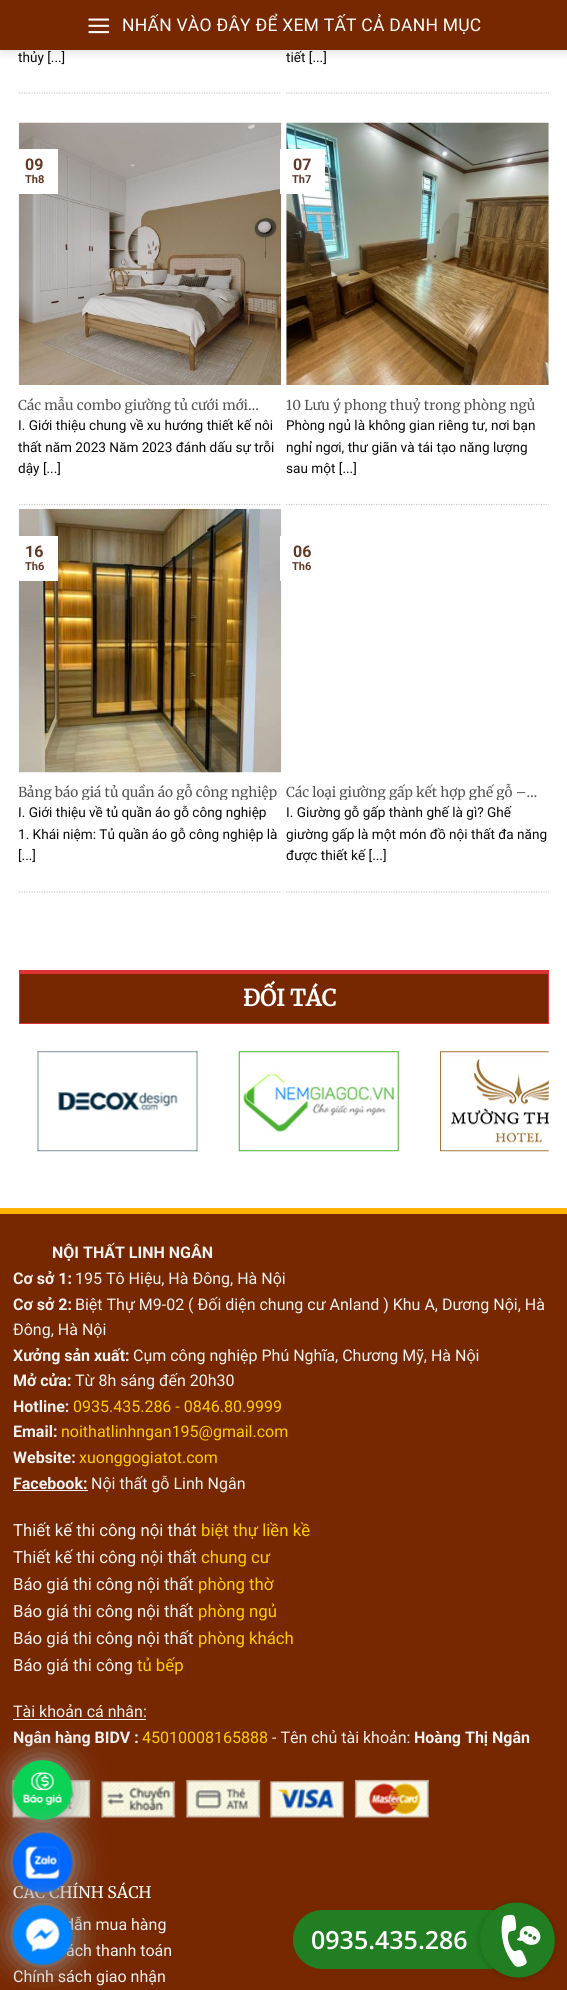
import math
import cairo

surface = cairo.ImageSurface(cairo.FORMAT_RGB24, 567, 1990)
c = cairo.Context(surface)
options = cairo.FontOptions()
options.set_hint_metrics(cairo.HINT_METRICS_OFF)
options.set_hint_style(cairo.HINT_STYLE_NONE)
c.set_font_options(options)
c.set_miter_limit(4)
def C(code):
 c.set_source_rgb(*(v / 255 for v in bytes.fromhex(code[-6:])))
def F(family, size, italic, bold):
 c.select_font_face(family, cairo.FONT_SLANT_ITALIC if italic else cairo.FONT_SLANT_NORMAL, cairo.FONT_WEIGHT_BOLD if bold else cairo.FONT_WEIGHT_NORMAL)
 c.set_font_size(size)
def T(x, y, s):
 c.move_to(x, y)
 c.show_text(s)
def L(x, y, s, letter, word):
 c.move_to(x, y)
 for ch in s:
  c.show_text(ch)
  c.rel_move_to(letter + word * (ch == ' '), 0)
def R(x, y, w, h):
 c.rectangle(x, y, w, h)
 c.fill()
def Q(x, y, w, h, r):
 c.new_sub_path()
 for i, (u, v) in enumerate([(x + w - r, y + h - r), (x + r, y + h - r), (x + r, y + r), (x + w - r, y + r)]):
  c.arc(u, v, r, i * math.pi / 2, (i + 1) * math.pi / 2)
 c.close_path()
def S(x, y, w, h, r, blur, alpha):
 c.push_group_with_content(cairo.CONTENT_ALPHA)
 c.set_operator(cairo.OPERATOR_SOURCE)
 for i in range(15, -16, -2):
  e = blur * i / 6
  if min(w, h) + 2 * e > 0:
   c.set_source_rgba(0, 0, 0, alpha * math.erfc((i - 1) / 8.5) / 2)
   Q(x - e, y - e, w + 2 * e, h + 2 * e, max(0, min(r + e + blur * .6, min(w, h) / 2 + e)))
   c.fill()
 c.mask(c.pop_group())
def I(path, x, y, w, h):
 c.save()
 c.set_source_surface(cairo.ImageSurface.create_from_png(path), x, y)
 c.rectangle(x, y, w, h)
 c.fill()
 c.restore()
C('ffffff')
c.paint()
C('000000')
S(1,1,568,50,0,6,.15)
C('772801')
R(0,0,567,50)
I('1.png',88,18,22,16)
F('Roboto',17.5,0,0)
C('ffffff')
L(122,31,'NHẤN VÀO ĐÂY ĐỂ XEM TẤT CẢ DANH MỤC',.25,0)
c.new_path()
c.move_to(19,93)
c.line_to(281,93)
C('cccccc')
c.set_line_width(1.2)
c.set_dash([1.25,1.25])
c.stroke()
F('Roboto',13.6,0,0)
C('0a0a0a')
T(18,62,'thủy [...]')
c.new_path()
c.move_to(286,93)
c.line_to(549,93)
C('cccccc')
c.stroke()
C('0a0a0a')
T(286,62,'tiết [...]')
c.new_path()
c.move_to(19,504.5)
c.line_to(281,504.5)
C('cccccc')
c.stroke()
I('2.png',18,122,264,263)
C('ffffff')
R(18,149,40,45)
F('Roboto',16,0,1)
C('623827')
T(25,170,'09')
F('Roboto',11,0,1)
T(25,183,'Th8')
F('Merriweather Light',13.6,0,0)
C('555555')
T(18,410,'Các mẫu combo giường tủ cưới mới…')
F('Roboto',13.6,0,0)
C('0a0a0a')
T(18,430,'I. Giới thiệu chung về xu hướng thiết kế nôi')
T(18,452,'thất năm 2023 Năm 2023 đánh dấu sự trỗi')
T(18,473,'dậy [...]')
c.new_path()
c.move_to(286,504.5)
c.line_to(549,504.5)
C('cccccc')
c.stroke()
I('3.png',286,122,263,263)
C('ffffff')
R(280,149,45,45)
F('Roboto',16,0,1)
C('623827')
T(293,170,'07')
F('Roboto',11,0,1)
T(292,183,'Th7')
F('Merriweather Light',13.6,0,0)
C('555555')
T(286,410,'10 Lưu ý phong thuỷ trong phòng ngủ')
F('Roboto',13.6,0,0)
C('0a0a0a')
T(286,430,'Phòng ngủ là không gian riêng tư, nơi bạn')
T(286,452,'nghỉ ngơi, thư giãn và tái tạo năng lượng')
T(286,473,'sau một [...]')
c.new_path()
c.move_to(19,892)
c.line_to(281,892)
C('cccccc')
c.stroke()
I('4.png',18,508,264,265)
C('ffffff')
R(18,536,40,45)
F('Roboto',16,0,1)
C('623827')
T(25,557,'16')
F('Roboto',11,0,1)
T(25,570,'Th6')
c.save()
c.rectangle(19,783,262,17)
c.clip()
F('Merriweather Light',13.6,0,0)
C('555555')
T(18,797,'Bảng báo giá tủ quần áo gỗ công nghiệp')
c.restore()
F('Roboto',13.6,0,0)
C('0a0a0a')
T(18,817,'I. Giới thiệu về tủ quần áo gỗ công nghiệp')
T(18,839,'1. Khái niệm: Tủ quần áo gỗ công nghiệp là')
T(18,860,'[...]')
c.new_path()
c.move_to(286,892)
c.line_to(549,892)
C('cccccc')
c.stroke()
C('ffffff')
R(280,536,2,45)
F('Roboto',16,0,1)
C('623827')
T(293,557,'06')
F('Roboto',11,0,1)
T(292,570,'Th6')
c.save()
c.rectangle(286,783,263,17)
c.clip()
F('Merriweather Light',13.6,0,0)
C('555555')
T(286,797,'Các loại giường gấp kết hợp ghế gỗ –…')
c.restore()
F('Roboto',13.6,0,0)
C('0a0a0a')
T(286,817,'I. Giường gỗ gấp thành ghế là gì? Ghế')
T(286,839,'giường gấp là một món đồ nội thất đa năng')
T(286,860,'được thiết kế [...]')
C('772801')
R(20,974,528,49)
C('dd3333')
R(19,970,530,4)
R(548,970,1,54)
R(19,1023,530,1)
R(19,970,1,54)
F('Merriweather',22.5,0,1)
C('ffffff')
T(243,1006,'ĐỐI TÁC')
I('5.png',37,1051,161,101)
I('6.png',238,1051,161,101)
I('7.png',440,1051,109,101)
C('772801')
R(0,1214,567,776)
C('ffb200')
R(0,1208,567,6)
F('Roboto',16,0,1)
C('f1f1f1')
T(52,1258,'NỘI THẤT LINH NGÂN')
T(13,1284,'Cơ sở 1:')
F('Roboto',16,0,0)
T(75,1284,'195 Tô Hiệu, Hà Đông, Hà Nội')
F('Roboto',16,0,1)
T(13,1310,'Cơ sở 2:')
F('Roboto',16,0,0)
T(75,1310,'Biệt Thự M9-02 ( Đối diện chung cư Anland ) Khu A, Dương Nội, Hà')
T(13,1335,'Đông, Hà Nội')
F('Roboto',16,0,1)
T(13,1361,'Xưởng sản xuất:')
F('Roboto',16,0,0)
T(133,1361,'Cụm công nghiệp Phú Nghĩa, Chương Mỹ, Hà Nội')
F('Roboto',16,0,1)
T(13,1386,'Mở cửa:')
F('Roboto',16,0,0)
T(75,1386,'Từ 8h sáng đến 20h30')
F('Roboto',16,0,1)
T(13,1412,'Hotline:')
F('Roboto',16,0,0)
C('ffcc00')
T(73,1412,'0935.435.286 - 0846.80.9999')
F('Roboto',16,0,1)
C('f1f1f1')
T(13,1437,'Email:')
F('Roboto',16,0,0)
C('ffcc00')
T(61,1437,'noithatlinhngan195@gmail.com')
F('Roboto',16,0,1)
C('f1f1f1')
T(13,1463,'Website:')
F('Roboto',16,0,0)
C('ffcc00')
T(79,1463,'xuonggogiatot.com')
F('Roboto',16,0,1)
C('f1f1f1')
T(13,1489,'Facebook:')
R(13,1490,75,1)
F('Roboto',16,0,0)
T(91,1489,'Nội thất gỗ Linh Ngân')
F('Roboto',16.75,0,0)
T(13,1536,'Thiết kế thi công nội thát')
C('ffcc00')
T(201,1536,'biệt thự liền kề')
C('f1f1f1')
T(13,1563,'Thiết kế thi công nội thất')
C('ffcc00')
T(201,1563,'chung cư')
C('f1f1f1')
T(13,1590,'Báo giá thi công nội thất')
C('ffcc00')
T(198,1590,'phòng thờ')
C('f1f1f1')
T(13,1617,'Báo giá thi công nội thất')
C('ffcc00')
T(198,1617,'phòng ngủ')
C('f1f1f1')
T(13,1644,'Báo giá thi công nội thất')
C('ffcc00')
T(198,1644,'phòng khách')
C('f1f1f1')
T(13,1671,'Báo giá thi công')
C('ffcc00')
T(137,1671,'tủ bếp')
F('Roboto',16,0,0)
C('f1f1f1')
T(13,1717,'Tài khoản cá nhân:')
R(13,1719,133,1)
F('Roboto',16,0,1)
T(13,1743,'Ngân hàng BIDV :')
F('Roboto',16,0,0)
C('ffcc00')
T(142,1743,'45010008165888')
C('f1f1f1')
T(272,1743,'- Tên chủ tài khoản:')
F('Roboto',16,0,1)
T(414,1743,'Hoàng Thị Ngân')
I('8.png',12,1779,417,39)
F('Merriweather Light',16,0,0)
C('ffffff')
T(13,1898,'CÁC CHÍNH SÁCH')
F('Roboto',16,0,0)
C('f1f1f1')
T(65,1930,'dẫn mua hàng')
T(66,1956,'ách thanh toán')
T(13,1982,'Chính sách giao nhận')
C('999999')
S(13,1760,60,60,30,15.5,1)
I('9.png',12,1760,61,60)
S(13,1833,60,60,30,15.5,1)
I('10.png',12,1832,61,61)
S(13,1905,60,60,30,15.5,1)
I('11.png',12,1904,61,62)
C('217e22')
Q(293,1910,225,59,29.5)
c.fill()
F('Open Sans SemiBold',25,0,0)
C('ffffff')
T(311,1949,'0935.435.286')
C('000000')
S(480,1903,75,75,37.5,3.5,.2)
C('217e22')
c.new_path()
c.move_to(536,1908)
c.curve_to(554,1918,560,1941,550,1959)
c.curve_to(540,1977,517,1983,499,1972)
c.curve_to(481,1962,475,1939,485,1921)
c.curve_to(495,1903,518,1897,536,1908)
c.close_path()
c.fill()
I('12.png',501,1914,40,53)
surface.write_to_png('o.png')
